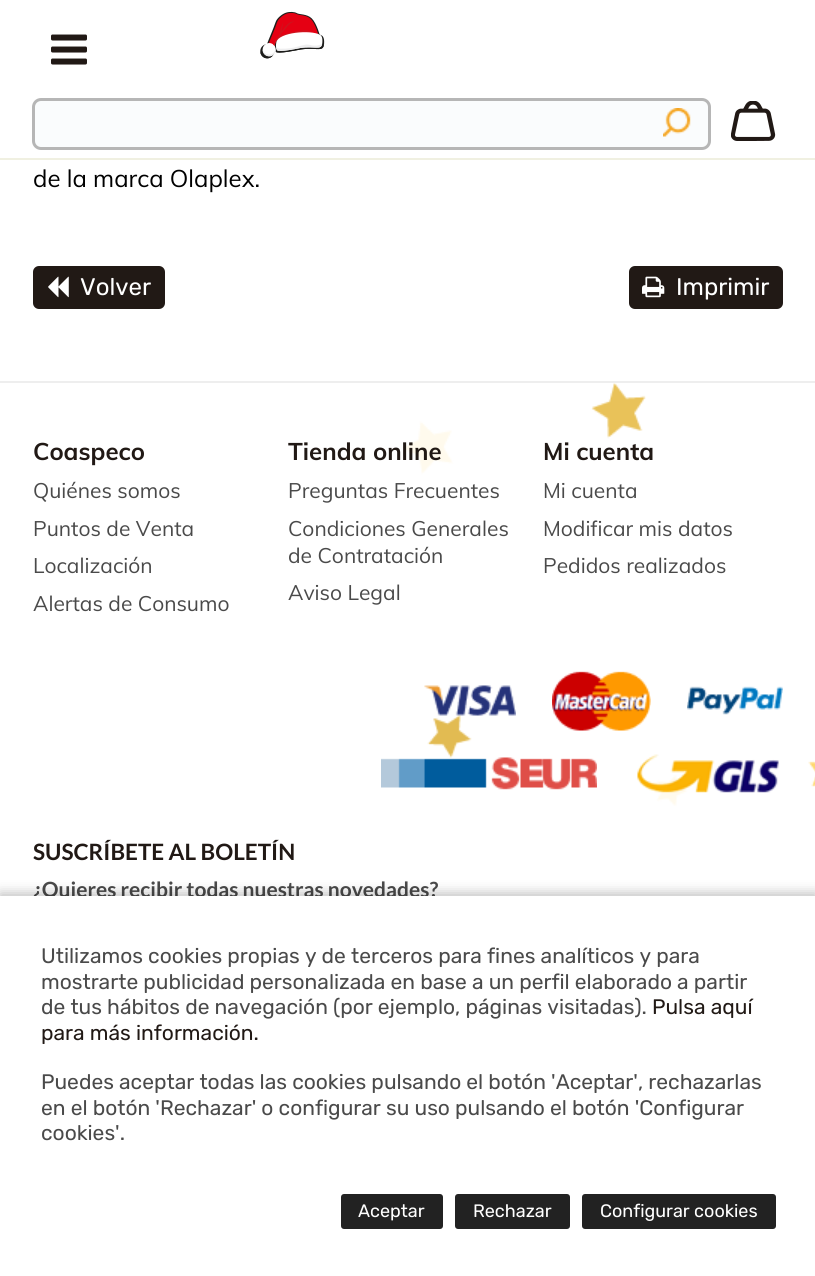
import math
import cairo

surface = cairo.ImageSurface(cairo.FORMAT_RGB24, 815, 1276)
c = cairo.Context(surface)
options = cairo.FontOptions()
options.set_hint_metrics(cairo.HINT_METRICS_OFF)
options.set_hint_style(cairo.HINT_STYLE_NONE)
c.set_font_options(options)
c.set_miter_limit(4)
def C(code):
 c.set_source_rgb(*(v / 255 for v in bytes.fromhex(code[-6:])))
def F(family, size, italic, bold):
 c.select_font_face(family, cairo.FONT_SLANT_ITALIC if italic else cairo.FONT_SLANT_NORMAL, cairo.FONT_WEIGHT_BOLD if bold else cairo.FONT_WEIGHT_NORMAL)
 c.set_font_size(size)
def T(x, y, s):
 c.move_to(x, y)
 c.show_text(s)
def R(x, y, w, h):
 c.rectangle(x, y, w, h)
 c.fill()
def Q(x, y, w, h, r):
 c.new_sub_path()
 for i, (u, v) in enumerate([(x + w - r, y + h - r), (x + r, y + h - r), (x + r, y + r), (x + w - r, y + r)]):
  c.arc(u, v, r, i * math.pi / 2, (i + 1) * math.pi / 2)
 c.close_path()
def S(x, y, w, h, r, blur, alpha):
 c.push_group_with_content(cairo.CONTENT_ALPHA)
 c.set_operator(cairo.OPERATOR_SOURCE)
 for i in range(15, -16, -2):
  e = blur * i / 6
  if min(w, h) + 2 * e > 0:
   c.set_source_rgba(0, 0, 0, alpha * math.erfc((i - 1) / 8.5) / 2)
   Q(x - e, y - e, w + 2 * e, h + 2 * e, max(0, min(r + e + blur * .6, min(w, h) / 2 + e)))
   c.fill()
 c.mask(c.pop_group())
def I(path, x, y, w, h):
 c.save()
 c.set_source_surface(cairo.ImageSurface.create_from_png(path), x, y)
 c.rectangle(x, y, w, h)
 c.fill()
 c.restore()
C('ffffff')
c.paint()
I('1.png',402,383,413,424)
C('f0f0e1')
R(0,158,815,2)
I('2.png',260,11,65,48)
C('fafcfd')
Q(33.5,99.5,676,49,7.5)
c.fill_preserve()
C('b6b6b6')
c.set_line_width(3)
c.stroke()
I('3.png',663,108,28,29)
I('4.png',731,101,45,40)
I('5.png',51,34,36,31)
F('Muli',24,0,0)
C('000000')
T(33,187,'de la marca Olaplex.')
C('211915')
Q(34,267,130,41,5)
c.fill_preserve()
c.set_line_width(2)
c.stroke()
I('6.png',48,276,21,22)
F('Rubik',24,0,0)
C('ffffff')
T(80,295,'Volver')
C('211915')
Q(630,267,152,41,5)
c.fill_preserve()
c.stroke()
I('7.png',642,276,23,22)
C('ffffff')
T(676,295,'Imprimir')
C('eeeeee')
R(0,381,815,2)
F('Muli',24,0,1)
C('211915')
T(33,460,'Coaspeco')
F('Muli',21,0,0)
C('4a4a4a')
T(33,498,'Quiénes somos')
T(33,536,'Puntos de Venta')
T(33,573,'Localización')
T(33,611,'Alertas de Consumo')
F('Muli',24,0,1)
C('211915')
T(288,460,'Tienda online')
F('Muli',21,0,0)
C('4a4a4a')
T(288,498,'Preguntas Frecuentes')
T(288,536,'Condiciones Generales')
T(288,563,'de Contratación')
T(288,600,'Aviso Legal')
F('Muli',24,0,1)
C('211915')
T(543,460,'Mi cuenta')
F('Muli',21,0,0)
C('4a4a4a')
T(543,498,'Mi cuenta')
T(543,536,'Modificar mis datos')
T(543,573,'Pedidos realizados')
I('8.png',424,685,92,31)
I('9.png',552,671,99,60)
I('10.png',687,686,96,29)
I('11.png',381,757,216,33)
I('12.png',637,754,142,39)
F('Lato',22.5,0,1)
C('211915')
T(33,860,'SUSCRÍBETE AL BOLETÍN')
F('Lato',21,0,1)
C('4a4a4a')
T(33,897,'¿Quieres recibir todas nuestras novedades?')
C('000000')
S(0,893,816,381,0,6,.25)
C('ffffff')
R(0,896,815,380)
F('Rubik',21,0,0)
C('4a4a4a')
T(41,963,'Utilizamos cookies propias y de terceros para fines analíticos y para')
T(41,989,'mostrarte publicidad personalizada en base a un perfil elaborado a partir')
T(41,1014,'de tus hábitos de navegación (por ejemplo, páginas visitadas).')
C('211915')
T(652,1014,'Pulsa aquí')
T(41,1040,'para más información.')
C('4a4a4a')
T(41,1089,'Puedes aceptar todas las cookies pulsando el botón \'Aceptar\', rechazarlas')
T(41,1115,'en el botón \'Rechazar\' o configurar su uso pulsando el botón \'Configurar')
T(41,1140,'cookies\'.')
C('222222')
Q(341,1194,102,35,3)
c.fill()
F('Rubik',18,0,0)
C('ffffff')
T(358,1217,'Aceptar')
C('222222')
Q(455,1194,115,35,3)
c.fill()
C('ffffff')
T(473,1217,'Rechazar')
C('222222')
Q(582,1194,194,35,3)
c.fill()
C('ffffff')
T(600,1217,'Configurar cookies')
surface.write_to_png('o.png')
